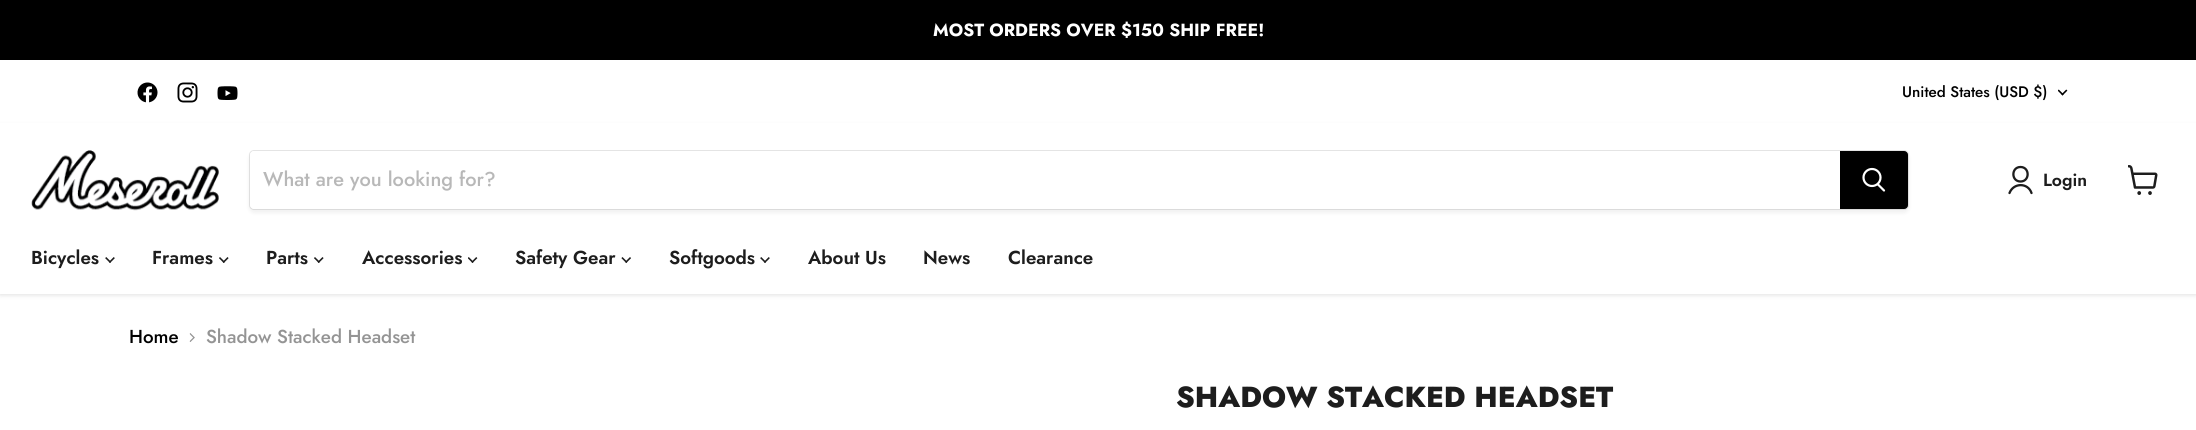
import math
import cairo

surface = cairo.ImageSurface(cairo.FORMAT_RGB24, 2196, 430)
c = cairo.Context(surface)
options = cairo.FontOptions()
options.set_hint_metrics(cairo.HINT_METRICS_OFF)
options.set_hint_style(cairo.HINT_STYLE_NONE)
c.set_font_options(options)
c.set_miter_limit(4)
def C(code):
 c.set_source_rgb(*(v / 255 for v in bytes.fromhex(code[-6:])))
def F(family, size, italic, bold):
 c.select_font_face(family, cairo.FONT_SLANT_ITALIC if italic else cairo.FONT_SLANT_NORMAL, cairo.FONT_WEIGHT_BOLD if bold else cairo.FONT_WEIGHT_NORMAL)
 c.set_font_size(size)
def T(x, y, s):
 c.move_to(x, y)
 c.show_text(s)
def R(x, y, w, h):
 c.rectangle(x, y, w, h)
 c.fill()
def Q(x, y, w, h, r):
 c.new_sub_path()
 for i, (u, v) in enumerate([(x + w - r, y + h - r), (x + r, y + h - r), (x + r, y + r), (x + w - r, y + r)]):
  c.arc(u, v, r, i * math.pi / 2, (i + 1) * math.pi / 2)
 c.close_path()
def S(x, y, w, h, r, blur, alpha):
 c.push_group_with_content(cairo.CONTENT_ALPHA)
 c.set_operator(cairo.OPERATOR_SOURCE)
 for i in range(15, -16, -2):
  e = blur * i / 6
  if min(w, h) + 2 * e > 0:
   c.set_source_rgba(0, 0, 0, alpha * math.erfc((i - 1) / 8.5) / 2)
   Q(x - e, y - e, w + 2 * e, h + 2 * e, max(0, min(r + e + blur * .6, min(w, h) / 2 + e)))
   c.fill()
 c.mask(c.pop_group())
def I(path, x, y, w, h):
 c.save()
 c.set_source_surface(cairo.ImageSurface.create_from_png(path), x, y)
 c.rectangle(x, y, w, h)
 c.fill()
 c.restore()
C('ffffff')
c.paint()
C('000000')
R(0,0,2196,60)
F('Jost',17.6,0,1)
C('ffffff')
T(933,36,'MOST ORDERS OVER $150 SHIP FREE!')
I('1.png',137,82,21,21)
I('2.png',177,82,21,21)
I('3.png',217,86,21,14)
F('Jost Medium',15.25,0,0)
C('000000')
T(1902,97,'United States (USD $)')
I('4.png',2058,89,10,7)
C('808080')
S(0,126,2196,169,0,2.5,.25)
C('ffffff')
R(0,123,2196,171)
I('5.png',31,150,188,61)
C('808080')
S(249,153,1660,60,5,2,.11)
Q(249.5,150.5,1659,59,4.5)
c.set_source_rgba(0.502,0.502,0.502,0.2)
c.set_line_width(1)
c.stroke()
C('ffffff')
c.new_path()
c.move_to(254,151)
c.line_to(1840,151)
c.line_to(1840,209)
c.line_to(254,209)
c.curve_to(252,209,250,207,250,205)
c.line_to(250,155)
c.curve_to(250,153,252,151,254,151)
c.close_path()
c.fill()
F('Jost Medium',20,0,0)
C('b8b8b8')
T(263,186,'What are you looking for?')
C('000000')
c.new_path()
c.move_to(1840.5,151.5)
c.line_to(1904,151.5)
c.curve_to(1906,151.5,1907.5,153,1907.5,155)
c.line_to(1907.5,205)
c.curve_to(1907.5,207,1906,208.5,1904,208.5)
c.line_to(1840.5,208.5)
c.close_path()
c.fill_preserve()
c.stroke()
c.new_path()
c.move_to(1884,190.5)
c.line_to(1878,184.5)
C('ffffff')
c.set_line_width(2.2)
c.set_line_cap(cairo.LINE_CAP_ROUND)
c.stroke()
c.arc(1872,177.5,8.5,0,2 * math.pi)
c.set_line_cap(cairo.LINE_CAP_BUTT)
c.stroke()
c.new_path()
c.move_to(2020.5,181.5)
c.curve_to(2030,181.5,2030,167,2020.5,167)
c.curve_to(2011,167,2011,181.5,2020.5,181.5)
c.close_path()
c.move_to(2031.5,193)
c.curve_to(2028,182.5,2013.5,182.5,2009.5,193)
C('1d1d1d')
c.set_line_width(2.3)
c.set_line_cap(cairo.LINE_CAP_ROUND)
c.set_line_join(cairo.LINE_JOIN_ROUND)
c.stroke()
F('Jost SemiBold',17.6,0,0)
T(2043,186,'Login')
I('6.png',2128,165,30,30)
F('Jost SemiBold',18.75,0,0)
T(31,264,'Bicycles')
I('7.png',105,257,10,6)
T(152,264,'Frames')
I('8.png',219,257,10,6)
T(266,264,'Parts')
I('8.png',314,257,10,6)
T(362,264,'Accessories')
I('9.png',468,257,10,6)
T(515,264,'Safety Gear')
I('10.png',621,257,10,6)
T(669,264,'Softgoods')
I('7.png',760,257,10,6)
T(808,264,'About Us')
T(923,264,'News')
T(1008,264,'Clearance')
F('Jost Medium',18.75,0,0)
C('000000')
T(129,343,'Home')
I('11.png',189,333,6,9)
C('949494')
T(206,343,'Shadow Stacked Headset')
F('Jost ExtraBold',29,0,0)
C('1d1d1d')
T(1176,407,'SHADOW STACKED HEADSET')
surface.write_to_png('o.png')
